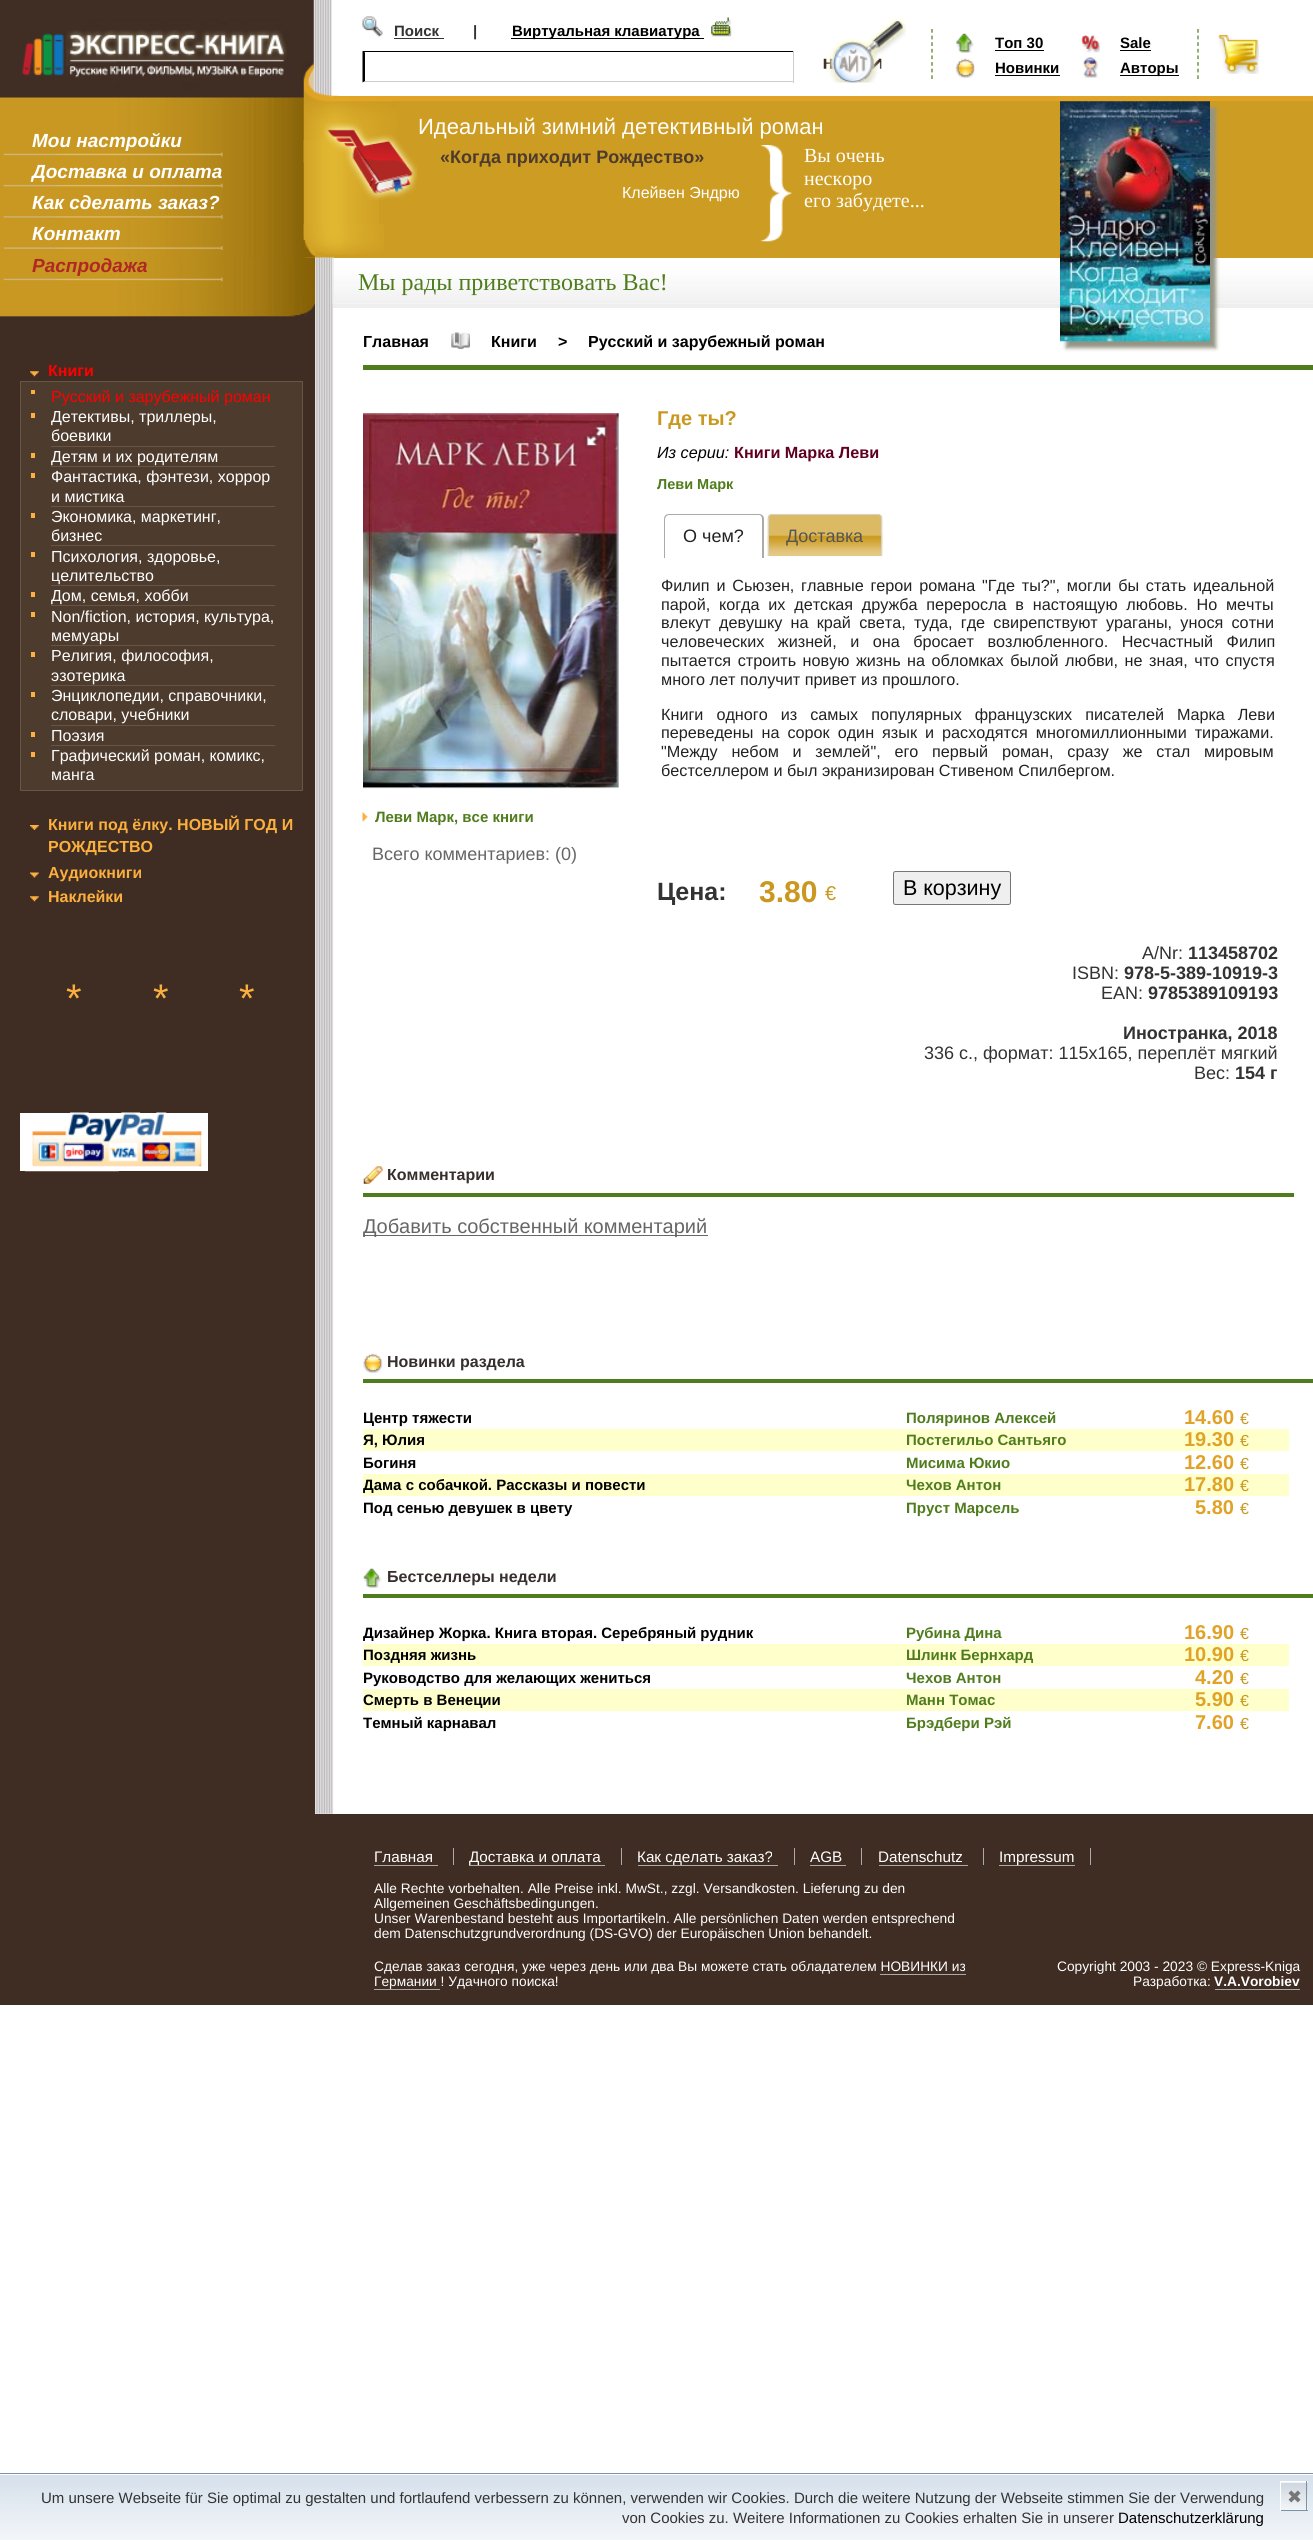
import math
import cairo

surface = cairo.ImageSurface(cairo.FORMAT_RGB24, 1313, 2540)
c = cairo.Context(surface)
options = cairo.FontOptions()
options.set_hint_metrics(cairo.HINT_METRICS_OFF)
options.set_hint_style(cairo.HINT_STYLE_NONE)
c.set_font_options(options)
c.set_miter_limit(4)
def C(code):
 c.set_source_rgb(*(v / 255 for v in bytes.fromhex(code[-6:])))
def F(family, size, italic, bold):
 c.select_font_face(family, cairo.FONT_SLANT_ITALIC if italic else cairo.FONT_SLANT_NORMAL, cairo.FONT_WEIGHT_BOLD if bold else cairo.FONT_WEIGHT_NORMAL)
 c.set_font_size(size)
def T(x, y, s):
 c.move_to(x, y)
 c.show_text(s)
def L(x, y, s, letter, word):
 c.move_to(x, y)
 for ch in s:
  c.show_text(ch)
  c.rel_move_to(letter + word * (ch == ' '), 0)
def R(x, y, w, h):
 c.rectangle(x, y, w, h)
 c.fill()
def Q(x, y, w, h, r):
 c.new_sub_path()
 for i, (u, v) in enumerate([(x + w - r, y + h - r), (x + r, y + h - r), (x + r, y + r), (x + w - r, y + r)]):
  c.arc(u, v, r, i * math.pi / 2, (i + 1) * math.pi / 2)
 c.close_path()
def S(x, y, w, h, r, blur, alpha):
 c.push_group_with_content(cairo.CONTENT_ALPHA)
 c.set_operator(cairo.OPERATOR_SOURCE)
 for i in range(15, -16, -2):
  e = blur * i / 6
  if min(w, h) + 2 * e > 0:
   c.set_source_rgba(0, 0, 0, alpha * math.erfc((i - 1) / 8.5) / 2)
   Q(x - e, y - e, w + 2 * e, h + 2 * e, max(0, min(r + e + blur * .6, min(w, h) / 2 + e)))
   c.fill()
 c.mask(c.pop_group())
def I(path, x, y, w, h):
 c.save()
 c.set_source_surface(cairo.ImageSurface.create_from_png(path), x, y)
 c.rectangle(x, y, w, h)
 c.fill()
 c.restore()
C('ffffff')
c.paint()
I('10.png',0,0,314,98)
I('1.png',22,30,265,48)
I('2.png',362,16,21,21)
F('Liberation Sans',15,0,1)
C('333333')
T(394,36,'Поиск')
R(394,38,50,1)
T(473,36,'|')
C('000000')
R(511,38,193,1)
T(512,36,'Виртуальная клавиатура')
I('3.png',711,17,21,20)
I('4.png',823,17,83,66)
R(363,51,431,1)
C('cccccc')
R(793,51,1,32)
C('e1a325')
R(332,96,981,5)
I('11.png',313,0,20,97)
I('15.png',0,97,315,161)
C('cd9c22')
R(315,101,998,157)
I('12.png',303,63,94,100)
C('cccccc')
c.new_path()
c.move_to(794,82)
c.line_to(362,82)
c.line_to(365,81)
c.line_to(792,81)
c.close_path()
c.fill()
C('000000')
c.new_path()
c.move_to(362.5,82.5)
c.line_to(362.5,51)
c.line_to(365,52.5)
c.line_to(365,81)
c.close_path()
c.fill()
c.new_path()
c.move_to(932,29)
c.line_to(932,79)
C('4f7c1c')
c.set_line_width(1.2)
c.set_dash([3.75,2.86])
c.stroke()
I('5.png',956,33,18,20)
C('000000')
T(995,48,'Топ 30')
R(995,50,49,1)
I('6.png',1081,34,19,19)
T(1120,48,'Sale')
R(1120,50,31,1)
I('7.png',955,58,20,20)
T(995,73,'Новинки')
R(995,75,65,1)
I('8.png',1083,57,16,21)
R(1120,75,59,1)
T(1120,73,'Авторы')
c.new_path()
c.move_to(1198,29)
c.line_to(1198,79)
C('4f7c1c')
c.stroke()
I('9.png',1218,34,41,40)
I('21.png',300,237,15,21)
I('13.png',303,140,76,100)
I('14.png',303,224,81,31)
I('16.png',3,152,220,5)
F('Liberation Sans',19,1,1)
C('ffffff')
T(32,147,'Мои настройки')
I('17.png',3,183,220,5)
T(32,178,'Доставка и оплата')
I('18.png',3,215,220,4)
T(32,209,'Как сделать заказ?')
I('19.png',3,246,220,4)
T(32,240,'Контакт')
I('22.png',0,257,315,21)
I('23.png',0,277,315,40)
I('20.png',3,277,220,5)
C('af2824')
T(32,272,'Распродажа')
I('24.png',323,122,95,78)
F('Liberation Sans',22,0,0)
C('ffffff')
T(418,134,'Идеальный зимний детективный роман')
F('Liberation Sans',18,0,1)
C('4d3b2d')
T(440,163,'«Когда приходит Рождество»')
F('Liberation Sans',16,0,0)
C('ffffff')
T(622,198,'Клейвен Эндрю')
I('25.png',760,145,33,97)
F('Liberation Serif',20,0,0)
T(804,162,'Вы очень')
T(804,185,'нескоро')
T(804,207,'его забудете...')
I('31.png',315,257,19,1557)
I('32.png',332,258,981,46)
C('efeeee')
R(333,304,980,4)
C('949484')
S(1066,108,150,240,0,2,1)
I('26.png',1060,101,150,241)
C('3f2c22')
R(0,317,315,1497)
I('27.png',30,371,9,6)
F('Liberation Sans',16,0,1)
C('ff0000')
T(48,376,'Книги')
C('4d3b2d')
c.rectangle(20.5,381.5,282,409)
c.fill_preserve()
C('695548')
c.set_line_width(1)
c.set_dash([])
c.stroke()
C('fcb040')
R(31,390,4,4)
F('Liberation Sans',16,0,0)
C('ff0000')
T(51,402,'Русский и зарубежный роман')
C('fcb040')
R(31,413,4,5)
C('695548')
R(51,446,224,1)
C('ffffff')
T(51,422,'Детективы, триллеры,')
T(51,441,'боевики')
C('fcb040')
R(31,453,4,5)
C('695548')
R(51,466,224,1)
C('ffffff')
T(51,462,'Детям и их родителям')
C('fcb040')
R(31,473,4,5)
C('695548')
R(51,506,224,1)
C('ffffff')
T(51,482,'Фантастика, фэнтези, хоррор')
T(51,502,'и мистика')
C('fcb040')
R(31,513,4,5)
C('695548')
R(51,545,224,1)
C('ffffff')
T(51,522,'Экономика, маркетинг,')
T(51,541,'бизнес')
C('fcb040')
R(31,552,4,5)
C('695548')
R(51,585,224,1)
C('ffffff')
T(51,562,'Психология, здоровье,')
T(51,581,'целительство')
C('fcb040')
R(31,592,4,5)
C('695548')
R(51,605,224,1)
C('ffffff')
T(51,601,'Дом, семья, хобби')
C('fcb040')
R(31,612,4,5)
C('695548')
R(51,645,224,1)
C('ffffff')
T(51,622,'Non/fiction, история, культура,')
T(51,641,'мемуары')
C('fcb040')
R(31,652,4,5)
C('695548')
R(51,685,224,1)
C('ffffff')
T(51,661,'Религия, философия,')
T(51,681,'эзотерика')
C('fcb040')
R(31,692,4,5)
C('695548')
R(51,725,224,1)
C('ffffff')
T(51,701,'Энциклопедии, справочники,')
T(51,720,'словари, учебники')
C('fcb040')
R(31,732,4,5)
C('695548')
R(51,745,224,1)
C('ffffff')
T(51,741,'Поэзия')
C('fcb040')
R(31,752,4,5)
C('ffffff')
T(51,761,'Графический роман, комикс,')
T(51,780,'манга')
I('28.png',30,825,9,5)
F('Liberation Sans',16,0,1)
C('faaf3f')
T(48,830,'Книги под ёлку. НОВЫЙ ГОД И')
T(48,852,'РОЖДЕСТВО')
I('29.png',30,872,9,6)
T(48,878,'Аудиокниги')
I('27.png',30,896,9,6)
T(48,902,'Наклейки')
F('Liberation Sans',40,0,0)
T(66,1012,'*')
T(153,1012,'*')
T(239,1012,'*')
C('ffffff')
R(20,1113,188,58)
I('30.png',25,1112,177,60)
C('efeeee')
R(333,258,1,50)
F('Liberation Serif',24,0,0)
C('4f7c1c')
T(358,290,'Мы рады приветствовать Вас!')
R(363,365,950,5)
F('Liberation Sans',16,0,1)
C('000000')
T(363,347,'Главная')
I('33.png',451,332,19,17)
T(491,347,'Книги')
T(558,347,'>')
T(588,347,'Русский и зарубежный роман')
I('34.png',363,413,256,376)
I('35.png',583,423,27,27)
I('36.png',362,812,6,10)
F('Liberation Sans',15,0,1)
C('4f7c1c')
T(375,822,'Леви Марк, все книги')
F('Liberation Sans',18,0,0)
C('666666')
T(372,860,'Всего комментариев: (0)')
F('Liberation Sans',20,0,1)
C('ca9820')
T(657,425,'Где ты?')
F('Liberation Sans',16.2,1,0)
C('000000')
T(657,458,'Из серии:')
F('Liberation Sans',16.2,0,1)
C('600020')
T(734,458,'Книги Марка Леви')
F('Liberation Sans',14.5,0,1)
C('4f7c1c')
T(657,489,'Леви Марк')
C('aaaaaa')
c.set_fill_rule(cairo.FILL_RULE_EVEN_ODD)
c.new_path()
c.move_to(669,514)
c.line_to(759,514)
c.curve_to(762,514,764,516,764,519)
c.line_to(764,558)
c.line_to(664,558)
c.line_to(664,519)
c.curve_to(664,516,666,514,669,514)
c.close_path()
c.move_to(669,515)
c.line_to(759,515)
c.curve_to(761,515,762,517,762,519)
c.line_to(762,558)
c.line_to(665,558)
c.line_to(665,519)
c.curve_to(665,517,667,515,669,515)
c.close_path()
c.fill()
F('Liberation Sans',18,0,0)
C('222222')
T(683,542,'О чем?')
I('37.png',767,513,116,44)
C('d3d3d3')
c.new_path()
c.move_to(772,514)
c.line_to(878,514)
c.curve_to(880,514,882,516,882,519)
c.line_to(882,556)
c.line_to(768,556)
c.line_to(768,519)
c.curve_to(768,516,770,514,772,514)
c.close_path()
c.move_to(772,515)
c.line_to(878,515)
c.curve_to(880,515,881,517,881,519)
c.line_to(881,556)
c.line_to(769,556)
c.line_to(769,519)
c.curve_to(769,517,770,515,772,515)
c.close_path()
c.fill()
C('555555')
T(786,542,'Доставка')
F('Liberation Sans',16.2,0,0)
C('222222')
L(661,591,'Филип и Сьюзен, главные герои романа "Где ты?", могли бы стать идеальной',0,2.25)
L(661,610,'парой, когда их детская дружба переросла в настоящую любовь. Но мечты',0,4.25)
L(661,628,'влекут девушку на край света, туда, где свирепствуют ураганы, унося сотни',0,3.75)
L(661,647,'человеческих жизней, и она бросает возлюбленного. Несчастный Филип',0,9)
L(661,666,'пытается строить новую жизнь на обломках былой любви, не зная, что спустя',0,2)
T(661,685,'много лет получит привет из прошлого.')
L(661,720,'Книги одного из самых популярных французских писателей Марка Леви',0,8.5)
L(661,738,'переведены на сорок один язык и расходятся многомиллионными тиражами.',0,3.5)
L(661,757,'"Между небом и землей", его первый роман, сразу же стал мировым',0,9.25)
T(661,776,'бестселлером и был экранизирован Стивеном Спилбергом.')
F('Liberation Sans',25,0,1)
C('333333')
T(657,900,'Цена:')
F('Liberation Sans',30,0,1)
C('ca9820')
T(759,902,'3.80')
F('Liberation Sans',20,0,0)
T(825,900,'€')
C('efefef')
Q(893.5,871.5,117,33,2)
c.fill_preserve()
C('767676')
c.stroke()
F('Liberation Sans',21.5,0,0)
C('000000')
T(903,895,'В корзину')
F('Liberation Sans',18,0,0)
C('333333')
T(1142,959,'A/Nr:')
F('Liberation Sans',18,0,1)
T(1188,959,'113458702')
F('Liberation Sans',18,0,0)
T(1072,979,'ISBN:')
F('Liberation Sans',18,0,1)
T(1124,979,'978-5-389-10919-3')
F('Liberation Sans',18,0,0)
T(1101,999,'EAN:')
F('Liberation Sans',18,0,1)
T(1148,999,'9785389109193')
T(1123,1039,'Иностранка, 2018')
F('Liberation Sans',18,0,0)
T(924,1059,'336 с., формат: 115х165, переплёт мягкий')
T(1194,1079,'Вес:')
F('Liberation Sans',18,0,1)
T(1235,1079,'154 г')
I('38.png',363,1166,20,18)
C('4f7c1c')
R(363,1193,931,4)
F('Liberation Sans',16,0,1)
C('362f2d')
T(387,1180,'Комментарии')
C('666666')
R(363,1235,345,1)
F('Liberation Sans',20,0,0)
T(363,1233,'Добавить собственный комментарий')
I('39.png',362,1353,21,20)
C('4f7c1c')
R(363,1379,950,4)
F('Liberation Sans',16,0,1)
C('362f2d')
T(387,1367,'Новинки раздела')
F('Liberation Sans',15,0,1)
C('000000')
T(363,1423,'Центр тяжести')
C('4f7c1c')
T(906,1423,'Поляринов Алексей')
F('Liberation Sans',20,0,1)
C('e0a327')
T(1184,1424,'14.60')
F('Liberation Sans',16,0,0)
C('ca9820')
T(1240,1424,'€')
C('ffffcc')
R(363,1429,926,22)
F('Liberation Sans',15,0,1)
C('000000')
T(363,1445,'Я, Юлия')
C('4f7c1c')
T(906,1445,'Постегильо Сантьяго')
F('Liberation Sans',20,0,1)
C('e0a327')
T(1184,1446,'19.30')
F('Liberation Sans',16,0,0)
C('ca9820')
T(1240,1446,'€')
F('Liberation Sans',15,0,1)
C('000000')
T(363,1468,'Богиня')
C('4f7c1c')
T(906,1468,'Мисима Юкио')
F('Liberation Sans',20,0,1)
C('e0a327')
T(1184,1469,'12.60')
F('Liberation Sans',16,0,0)
C('ca9820')
T(1240,1469,'€')
C('ffffcc')
R(363,1474,926,22)
F('Liberation Sans',15,0,1)
C('000000')
T(363,1490,'Дама с собачкой. Рассказы и повести')
C('4f7c1c')
T(906,1490,'Чехов Антон')
F('Liberation Sans',20,0,1)
C('e0a327')
T(1184,1491,'17.80')
F('Liberation Sans',16,0,0)
C('ca9820')
T(1240,1491,'€')
F('Liberation Sans',15,0,1)
C('000000')
T(363,1513,'Под сенью девушек в цвету')
C('4f7c1c')
T(906,1513,'Пруст Марсель')
F('Liberation Sans',20,0,1)
C('e0a327')
T(1195,1514,'5.80')
F('Liberation Sans',16,0,0)
C('ca9820')
T(1240,1514,'€')
I('40.png',363,1568,19,20)
C('4f7c1c')
R(363,1594,950,4)
F('Liberation Sans',16,0,1)
C('362f2d')
T(387,1582,'Бестселлеры недели')
F('Liberation Sans',15,0,1)
C('000000')
T(363,1638,'Дизайнер Жорка. Книга вторая. Серебряный рудник')
C('4f7c1c')
T(906,1638,'Рубина Дина')
F('Liberation Sans',20,0,1)
C('e0a327')
T(1184,1639,'16.90')
F('Liberation Sans',16,0,0)
C('ca9820')
T(1240,1639,'€')
C('ffffcc')
R(363,1644,926,22)
F('Liberation Sans',15,0,1)
C('000000')
T(363,1660,'Поздняя жизнь')
C('4f7c1c')
T(906,1660,'Шлинк Бернхард')
F('Liberation Sans',20,0,1)
C('e0a327')
T(1184,1661,'10.90')
F('Liberation Sans',16,0,0)
C('ca9820')
T(1240,1661,'€')
F('Liberation Sans',15,0,1)
C('000000')
T(363,1683,'Руководство для желающих жениться')
C('4f7c1c')
T(906,1683,'Чехов Антон')
F('Liberation Sans',20,0,1)
C('e0a327')
T(1195,1684,'4.20')
F('Liberation Sans',16,0,0)
C('ca9820')
T(1240,1684,'€')
C('ffffcc')
R(363,1689,926,22)
F('Liberation Sans',15,0,1)
C('000000')
T(363,1705,'Смерть в Венеции')
C('4f7c1c')
T(906,1705,'Манн Томас')
F('Liberation Sans',20,0,1)
C('e0a327')
T(1195,1706,'5.90')
F('Liberation Sans',16,0,0)
C('ca9820')
T(1240,1706,'€')
F('Liberation Sans',15,0,1)
C('000000')
T(363,1728,'Темный карнавал')
C('4f7c1c')
T(906,1728,'Брэдбери Рэй')
F('Liberation Sans',20,0,1)
C('e0a327')
T(1195,1729,'7.60')
F('Liberation Sans',16,0,0)
C('ca9820')
T(1240,1729,'€')
C('3f2c22')
R(0,1814,1313,191)
F('Liberation Sans',15.25,0,0)
C('ffffff')
T(374,1862,'Главная')
C('aaaaaa')
R(374,1865,64,1)
R(469,1865,136,1)
C('ffffff')
T(469,1862,'Доставка и оплата')
C('aaaaaa')
R(453,1848,1,17)
R(638,1865,140,1)
C('ffffff')
T(637,1862,'Как сделать заказ?')
C('aaaaaa')
R(621,1848,1,17)
C('ffffff')
T(810,1862,'AGB')
C('aaaaaa')
R(794,1848,1,17)
R(810,1865,36,1)
C('ffffff')
T(878,1862,'Datenschutz')
C('aaaaaa')
R(861,1848,1,17)
R(983,1848,1,17)
R(879,1865,89,1)
R(999,1865,76,1)
C('ffffff')
T(999,1862,'Impressum')
C('aaaaaa')
R(1090,1848,1,17)
F('Liberation Sans',13.75,0,0)
C('ffffff')
T(374,1893,'Alle Rechte vorbehalten. Alle Preise inkl. MwSt., zzgl. Versandkosten. Lieferung zu den')
T(374,1908,'Allgemeinen Geschäftsbedingungen.')
T(374,1923,'Unser Warenbestand besteht aus Importartikeln. Alle persönlichen Daten werden entsprechend')
T(374,1938,'dem Datenschutzgrundverordnung (DS-GVO) der Europäischen Union behandelt.')
T(374,1971,'Сделав заказ сегодня, уже через день или два Вы можете стать обладателем НОВИНКИ из')
T(374,1986,'Германии ! Удачного поиска!')
C('aaaaaa')
R(880,1974,86,1)
R(374,1989,66,1)
C('ffffff')
T(1057,1971,'Copyright 2003 - 2023 © Express-Kniga')
T(1133,1986,'Разработка:')
F('Liberation Sans',13.75,0,1)
T(1214,1986,'V.A.Vorobiev')
C('aaaaaa')
R(1215,1989,85,1)
gradient = cairo.LinearGradient(657,2475,657,2540)
gradient.add_color_stop_rgba(0,0.839,0.878,0.922,1)
gradient.add_color_stop_rgba(1,0.949,0.965,0.976,1)
c.set_source(gradient)
R(0,2475,1313,65)
c.rectangle(-.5,2473.5,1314,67)
C('7b92a9')
c.stroke()
F('Liberation Sans',15,0,0)
C('333333')
T(41,2503,'Um unsere Webseite für Sie optimal zu gestalten und fortlaufend verbessern zu können, verwenden wir Cookies. Durch die weitere Nutzung der Webseite stimmen Sie der Verwendung')
gradient = cairo.LinearGradient(1281,2455,1281,2483)
gradient.add_color_stop_rgba(0,0.808,0.839,0.875,1)
gradient.add_color_stop_rgba(1,0.949,0.965,0.976,1)
c.set_source(gradient)
R(1280,2482,28,1)
gradient = cairo.LinearGradient(1281,2483,1281,2510)
gradient.add_color_stop_rgba(0,0.808,0.839,0.875,1)
gradient.add_color_stop_rgba(1,0.949,0.965,0.976,1)
c.set_source(gradient)
R(1281,2483,27,27)
C('ffffff')
R(1280,2481,28,1)
C('7b92a9')
R(1306,2481,1,30)
R(1280,2510,28,1)
C('ffffff')
R(1280,2481,1,30)
F('DejaVu Sans',18,0,0)
C('777777')
T(1287,2503,'✖')
F('Liberation Sans',15,0,0)
C('333333')
T(622,2523,'von Cookies zu. Weitere Informationen zu Cookies erhalten Sie in unserer')
C('000000')
T(1118,2523,'Datenschutzerklärung')
surface.write_to_png('o.png')
